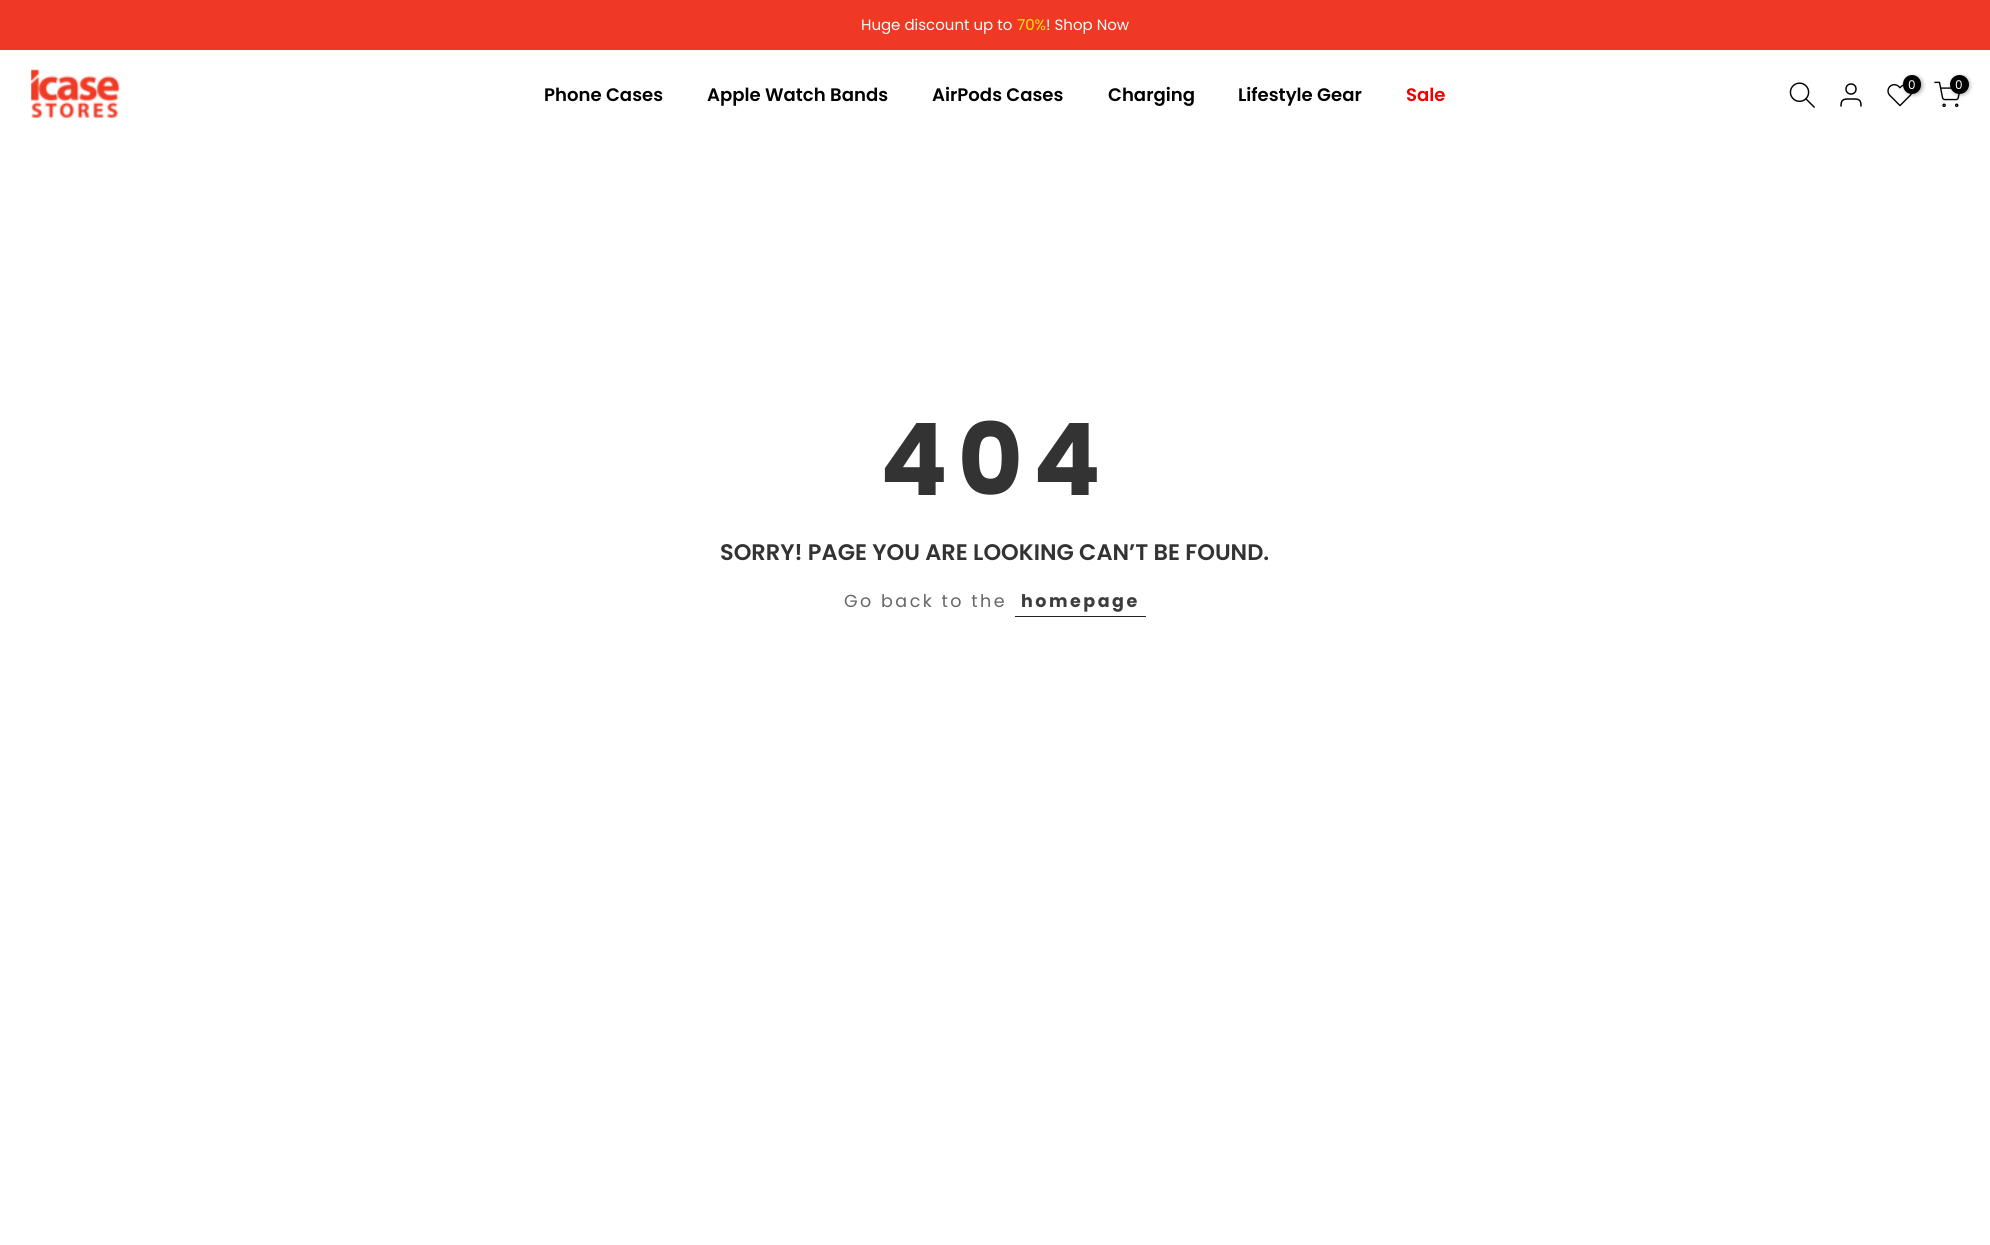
import math
import cairo

surface = cairo.ImageSurface(cairo.FORMAT_RGB24, 1990, 1245)
c = cairo.Context(surface)
options = cairo.FontOptions()
options.set_hint_metrics(cairo.HINT_METRICS_OFF)
options.set_hint_style(cairo.HINT_STYLE_NONE)
c.set_font_options(options)
c.set_miter_limit(4)
def C(code):
 c.set_source_rgb(*(v / 255 for v in bytes.fromhex(code[-6:])))
def F(family, size, italic, bold):
 c.select_font_face(family, cairo.FONT_SLANT_ITALIC if italic else cairo.FONT_SLANT_NORMAL, cairo.FONT_WEIGHT_BOLD if bold else cairo.FONT_WEIGHT_NORMAL)
 c.set_font_size(size)
def T(x, y, s):
 c.move_to(x, y)
 c.show_text(s)
def L(x, y, s, letter, word):
 c.move_to(x, y)
 for ch in s:
  c.show_text(ch)
  c.rel_move_to(letter + word * (ch == ' '), 0)
def R(x, y, w, h):
 c.rectangle(x, y, w, h)
 c.fill()
def Q(x, y, w, h, r):
 c.new_sub_path()
 for i, (u, v) in enumerate([(x + w - r, y + h - r), (x + r, y + h - r), (x + r, y + r), (x + w - r, y + r)]):
  c.arc(u, v, r, i * math.pi / 2, (i + 1) * math.pi / 2)
 c.close_path()
def S(x, y, w, h, r, blur, alpha):
 c.push_group_with_content(cairo.CONTENT_ALPHA)
 c.set_operator(cairo.OPERATOR_SOURCE)
 for i in range(15, -16, -2):
  e = blur * i / 6
  if min(w, h) + 2 * e > 0:
   c.set_source_rgba(0, 0, 0, alpha * math.erfc((i - 1) / 8.5) / 2)
   Q(x - e, y - e, w + 2 * e, h + 2 * e, max(0, min(r + e + blur * .6, min(w, h) / 2 + e)))
   c.fill()
 c.mask(c.pop_group())
def I(path, x, y, w, h):
 c.save()
 c.set_source_surface(cairo.ImageSurface.create_from_png(path), x, y)
 c.rectangle(x, y, w, h)
 c.fill()
 c.restore()
C('ffffff')
c.paint()
C('ef3924')
R(0,0,1990,50)
F('Poppins',15,0,0)
C('ffffff')
T(861,30,'Huge discount up to')
C('ffe700')
T(1017,30,'70%')
C('ffffff')
T(1046,30,'! Shop Now')
I('1.png',31,69,89,49)
I('2.png',1789,82,26,26)
c.arc(1851,89,5,0,2 * math.pi)
C('000000')
c.set_line_width(1.5)
c.stroke()
c.new_path()
c.move_to(1861,106)
c.curve_to(1861,98.5,1858,99,1851,99)
c.curve_to(1844.5,99,1841,98.5,1841,106)
c.set_line_cap(cairo.LINE_CAP_ROUND)
c.set_line_join(cairo.LINE_JOIN_ROUND)
c.stroke()
I('3.png',1887,84,26,23)
C('000000')
S(1904,76,19,19,9.5,2,.3)
C('000000')
Q(1903,75,18,19,9)
c.fill()
F('Poppins',12,0,0)
C('ffffff')
T(1908,89,'0')
I('4.png',1934,81,26,27)
C('000000')
S(1951,76,19,19,9.5,2,.3)
C('000000')
c.arc(1959.5,84.5,9.5,0,2 * math.pi)
c.fill()
C('ffffff')
T(1955,89,'0')
F('Poppins SemiBold',18.1,0,0)
C('000000')
T(544,101,'Phone Cases')
T(707,101,'Apple Watch Bands')
T(932,101,'AirPods Cases')
T(1108,101,'Charging')
T(1238,101,'Lifestyle Gear')
C('ec0101')
T(1406,101,'Sale')
F('Poppins',100,0,1)
C('333333')
L(880,495,'404',10,0)
F('Poppins SemiBold',22.5,0,0)
T(720,560,'SORRY! PAGE YOU ARE LOOKING CAN’T BE FOUND.')
F('Poppins',17.5,0,0)
C('666666')
L(844,607,'Go back to the',2.5,0)
F('Poppins',17.5,0,1)
C('3d3d3d')
L(1021,607,'homepage',2.5,0)
C('222222')
R(1015,616,131,1)
surface.write_to_png('o.png')
